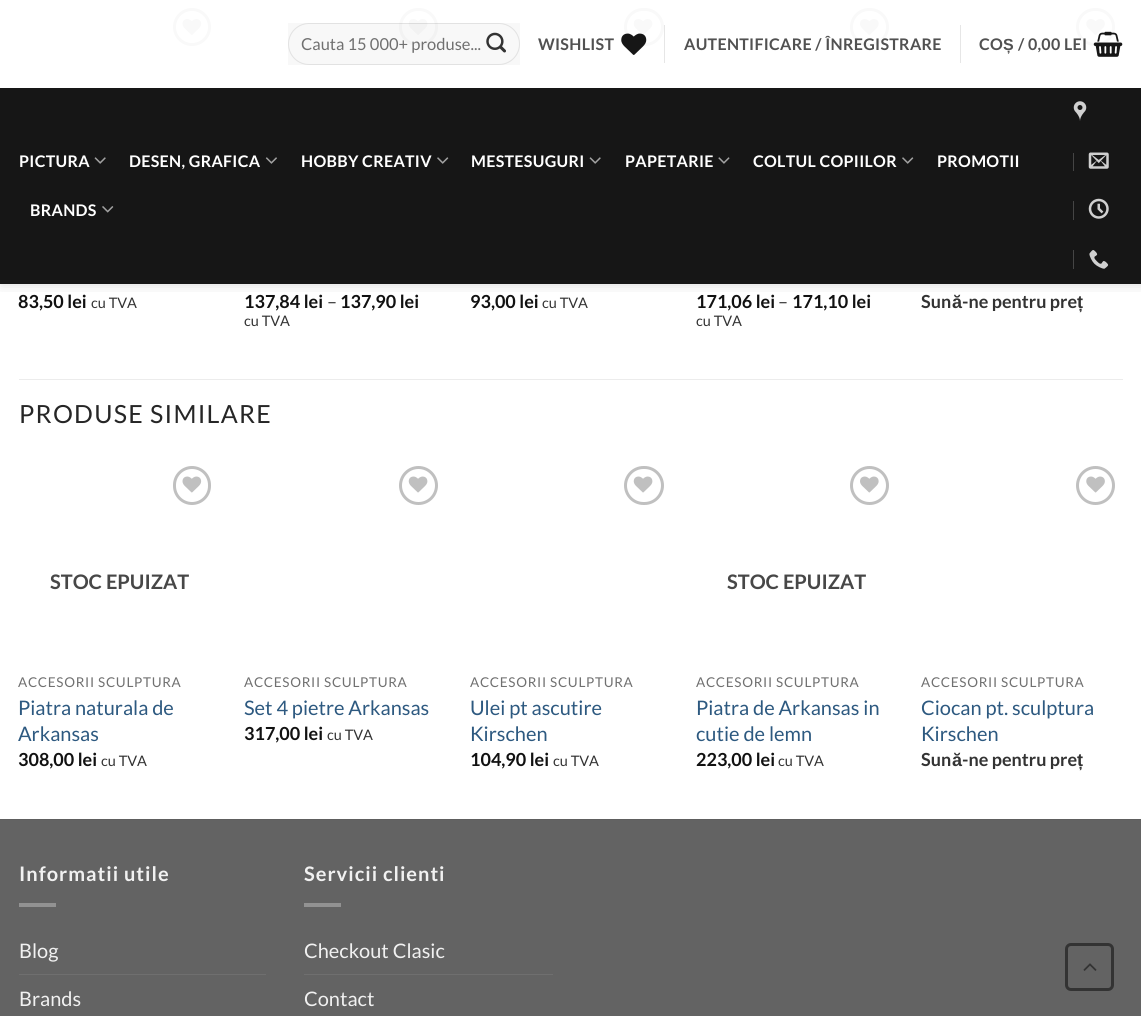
import math
import cairo

surface = cairo.ImageSurface(cairo.FORMAT_RGB24, 1141, 1016)
c = cairo.Context(surface)
options = cairo.FontOptions()
options.set_hint_metrics(cairo.HINT_METRICS_OFF)
options.set_hint_style(cairo.HINT_STYLE_NONE)
c.set_font_options(options)
c.set_miter_limit(4)
def C(code):
 c.set_source_rgb(*(v / 255 for v in bytes.fromhex(code[-6:])))
def F(family, size, italic, bold):
 c.select_font_face(family, cairo.FONT_SLANT_ITALIC if italic else cairo.FONT_SLANT_NORMAL, cairo.FONT_WEIGHT_BOLD if bold else cairo.FONT_WEIGHT_NORMAL)
 c.set_font_size(size)
def T(x, y, s):
 c.move_to(x, y)
 c.show_text(s)
def L(x, y, s, letter, word):
 c.move_to(x, y)
 for ch in s:
  c.show_text(ch)
  c.rel_move_to(letter + word * (ch == ' '), 0)
def R(x, y, w, h):
 c.rectangle(x, y, w, h)
 c.fill()
def Q(x, y, w, h, r):
 c.new_sub_path()
 for i, (u, v) in enumerate([(x + w - r, y + h - r), (x + r, y + h - r), (x + r, y + r), (x + w - r, y + r)]):
  c.arc(u, v, r, i * math.pi / 2, (i + 1) * math.pi / 2)
 c.close_path()
def S(x, y, w, h, r, blur, alpha):
 c.push_group_with_content(cairo.CONTENT_ALPHA)
 c.set_operator(cairo.OPERATOR_SOURCE)
 for i in range(15, -16, -2):
  e = blur * i / 6
  if min(w, h) + 2 * e > 0:
   c.set_source_rgba(0, 0, 0, alpha * math.erfc((i - 1) / 8.5) / 2)
   Q(x - e, y - e, w + 2 * e, h + 2 * e, max(0, min(r + e + blur * .6, min(w, h) / 2 + e)))
   c.fill()
 c.mask(c.pop_group())
def I(path, x, y, w, h):
 c.save()
 c.set_source_surface(cairo.ImageSurface.create_from_png(path), x, y)
 c.rectangle(x, y, w, h)
 c.fill()
 c.restore()
C('ffffff')
c.paint()
c.arc(192,27,17.5,0,2 * math.pi)
C('c0c0c0')
c.set_line_width(3)
c.stroke()
I('13.png',182,19,20,16)
Q(400.5,9.5,36,35,17.5)
c.stroke()
I('14.png',408,19,20,16)
Q(625.5,9.5,37,35,17.5)
c.stroke()
I('14.png',633,19,20,16)
Q(851.5,9.5,36,35,17.5)
c.stroke()
I('15.png',860,19,19,16)
Q(1077.5,9.5,36,35,17.5)
c.stroke()
I('16.png',1086,19,19,16)
c.save()
c.rectangle(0,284,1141,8)
c.clip()
C('000000')
S(1,1,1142,284,0,6,.15)
c.restore()
c.set_source_rgba(1,1,1,0.9)
R(173,8,942,38)
c.set_source_rgba(0,0,0,0.03)
R(288,23,232,42)
Q(288.5,23.5,231,41,20.5)
c.set_source_rgba(0,0,0,0.09)
c.set_line_width(1)
c.stroke()
F('Lato',16.5,0,0)
C('707070')
T(301,50,'Cauta 15 000+ produse...')
I('1.png',486,32,20,21)
F('Lato',16,0,1)
C('515151')
L(538,50,'WISHLIST',.3,0)
I('2.png',621,33,26,22)
C('e6e6e6')
R(664,25,1,38)
C('515151')
L(684,50,'AUTENTIFICARE / ÎNREGISTRARE',.3,0)
C('e6e6e6')
R(960,25,1,38)
C('515151')
L(979,50,'CO',.3,0)
F('Liberation Sans',16,0,1)
L(1003,50,'Ș',.3,0)
F('Lato',16,0,1)
L(1018,50,'/ 0,00 LEI',.3,0)
I('3.png',1093,31,30,26)
C('161616')
R(0,88,1141,196)
C('ffffff')
L(19,167,'PICTURA',.3,0)
I('4.png',94,157,12,7)
L(129,167,'DESEN, GRAFICA',.3,0)
I('5.png',265,157,12,7)
L(301,167,'HOBBY CREATIV',.3,0)
I('6.png',437,157,12,7)
L(471,167,'MESTESUGURI',.3,0)
I('4.png',589,157,12,7)
L(625,167,'PAPETARIE',.3,0)
I('7.png',718,157,12,7)
L(753,167,'COLTUL COPIILOR',.3,0)
I('6.png',902,157,12,7)
L(937,167,'PROMOTII',.3,0)
L(30,216,'BRANDS',.3,0)
I('8.png',102,206,12,7)
I('9.png',1073,101,14,20)
C('454545')
R(1073,153,1,18)
I('10.png',1088,152,21,17)
R(1073,201,1,19)
I('11.png',1088,198,21,21)
R(1073,250,1,19)
I('12.png',1089,250,20,19)
F('Lato',18,0,1)
C('111111')
T(18,308,'83,50 lei')
F('Lato',14.5,0,0)
C('333333')
T(91,308,'cu TVA')
F('Lato',18,0,1)
C('111111')
T(244,308,'137,84 lei')
F('Lato',18,0,0)
C('333333')
T(327,308,'–')
F('Lato',18,0,1)
C('111111')
T(340,308,'137,90 lei')
F('Lato',14.5,0,0)
C('333333')
T(244,326,'cu TVA')
F('Lato',18,0,1)
C('111111')
T(470,308,'93,00 lei')
F('Lato',14.5,0,0)
C('333333')
T(542,308,'cu TVA')
F('Lato',18,0,1)
C('111111')
T(696,308,'171,06 lei')
F('Lato',18,0,0)
C('333333')
T(778,308,'–')
F('Lato',18,0,1)
C('111111')
T(792,308,'171,10 lei')
F('Lato',14.5,0,0)
C('333333')
T(696,326,'cu TVA')
F('Lato',18,0,1)
T(921,308,'Sun')
F('Liberation Sans',18,0,1)
T(952,308,'ă')
F('Lato',18,0,1)
T(962,308,'-ne pentru pre')
F('Liberation Sans',18,0,1)
T(1077,308,'ț')
C('ececec')
R(19,379,1104,1)
F('Lato',25,0,0)
C('262626')
L(19,423,'PRODUSE SIMILARE',1.25,0)
Q(174.5,467.5,35,36,17.5)
C('c0c0c0')
c.set_line_width(3)
c.stroke()
I('17.png',182,476,20,17)
F('Lato',20,0,1)
C('474747')
T(50,589,'STOC EPUIZAT')
F('Lato',13.5,0,0)
C('707070')
L(18,687,'ACCESORII SCULPTURA',.7,0)
F('Lato',20,0,0)
C('2d5980')
T(18,715,'Piatra naturala de')
T(18,741,'Arkansas')
F('Lato',18,0,1)
C('111111')
T(18,766,'308,00 lei')
F('Lato',14.5,0,0)
C('333333')
T(101,766,'cu TVA')
c.new_path()
c.arc(418.5,485.5,18,0,2 * math.pi)
C('c0c0c0')
c.stroke()
I('18.png',408,476,20,17)
F('Lato',13.5,0,0)
C('707070')
L(244,687,'ACCESORII SCULPTURA',.7,0)
F('Lato',20,0,0)
C('2d5980')
T(244,715,'Set 4 pietre Arkansas')
F('Lato',18,0,1)
C('111111')
T(244,740,'317,00 lei')
F('Lato',14.5,0,0)
C('333333')
T(327,740,'cu TVA')
Q(625.5,467.5,37,36,18)
C('c0c0c0')
c.stroke()
I('18.png',633,476,20,17)
F('Lato',13.5,0,0)
C('707070')
L(470,687,'ACCESORII SCULPTURA',.7,0)
F('Lato',20,0,0)
C('2d5980')
T(470,715,'Ulei pt ascutire')
T(470,741,'Kirschen')
F('Lato',18,0,1)
C('111111')
T(470,766,'104,90 lei')
F('Lato',14.5,0,0)
C('333333')
T(553,766,'cu TVA')
c.new_path()
c.arc(869.5,485.5,18,0,2 * math.pi)
C('c0c0c0')
c.stroke()
I('19.png',860,476,19,17)
F('Lato',20,0,1)
C('474747')
T(727,589,'STOC EPUIZAT')
F('Lato',13.5,0,0)
C('707070')
L(696,687,'ACCESORII SCULPTURA',.7,0)
F('Lato',20,0,0)
C('2d5980')
T(696,715,'Piatra de Arkansas in')
T(696,741,'cutie de lemn')
F('Lato',18,0,1)
C('111111')
T(696,766,'223,00 lei')
F('Lato',14.5,0,0)
C('333333')
T(778,766,'cu TVA')
c.new_path()
c.arc(1095.5,485.5,18,0,2 * math.pi)
C('c0c0c0')
c.stroke()
I('20.png',1086,476,19,17)
F('Lato',13.5,0,0)
C('707070')
L(921,687,'ACCESORII SCULPTURA',.7,0)
F('Lato',20,0,0)
C('2d5980')
T(921,715,'Ciocan pt. sculptura')
T(921,741,'Kirschen')
F('Lato',18,0,1)
C('333333')
T(921,766,'Sun')
F('Liberation Sans',18,0,1)
T(952,766,'ă')
F('Lato',18,0,1)
T(962,766,'-ne pentru pre')
F('Liberation Sans',18,0,1)
T(1077,766,'ț')
C('636363')
R(0,820,1141,196)
C('5e5e5e')
R(0,819,1141,1)
F('Lato',20,0,1)
C('f1f1f1')
L(19,881,'Informatii utile',1,0)
C('929292')
R(19,903,37,4)
F('Lato',20,0,0)
C('f1f1f1')
T(19,958,'Blog')
C('6f6f6f')
R(19,974,247,1)
C('f1f1f1')
T(19,1006,'Brands')
F('Lato',20,0,1)
L(304,881,'Servicii clienti',1,0)
C('929292')
R(304,903,37,4)
F('Lato',20,0,0)
C('f1f1f1')
T(304,958,'Checkout Clasic')
C('6f6f6f')
R(304,974,249,1)
C('f1f1f1')
T(304,1006,'Contact')
Q(1066.5,944.5,46,45,4.5)
C('333333')
c.stroke()
I('21.png',1083,963,14,8)
surface.write_to_png('o.png')
